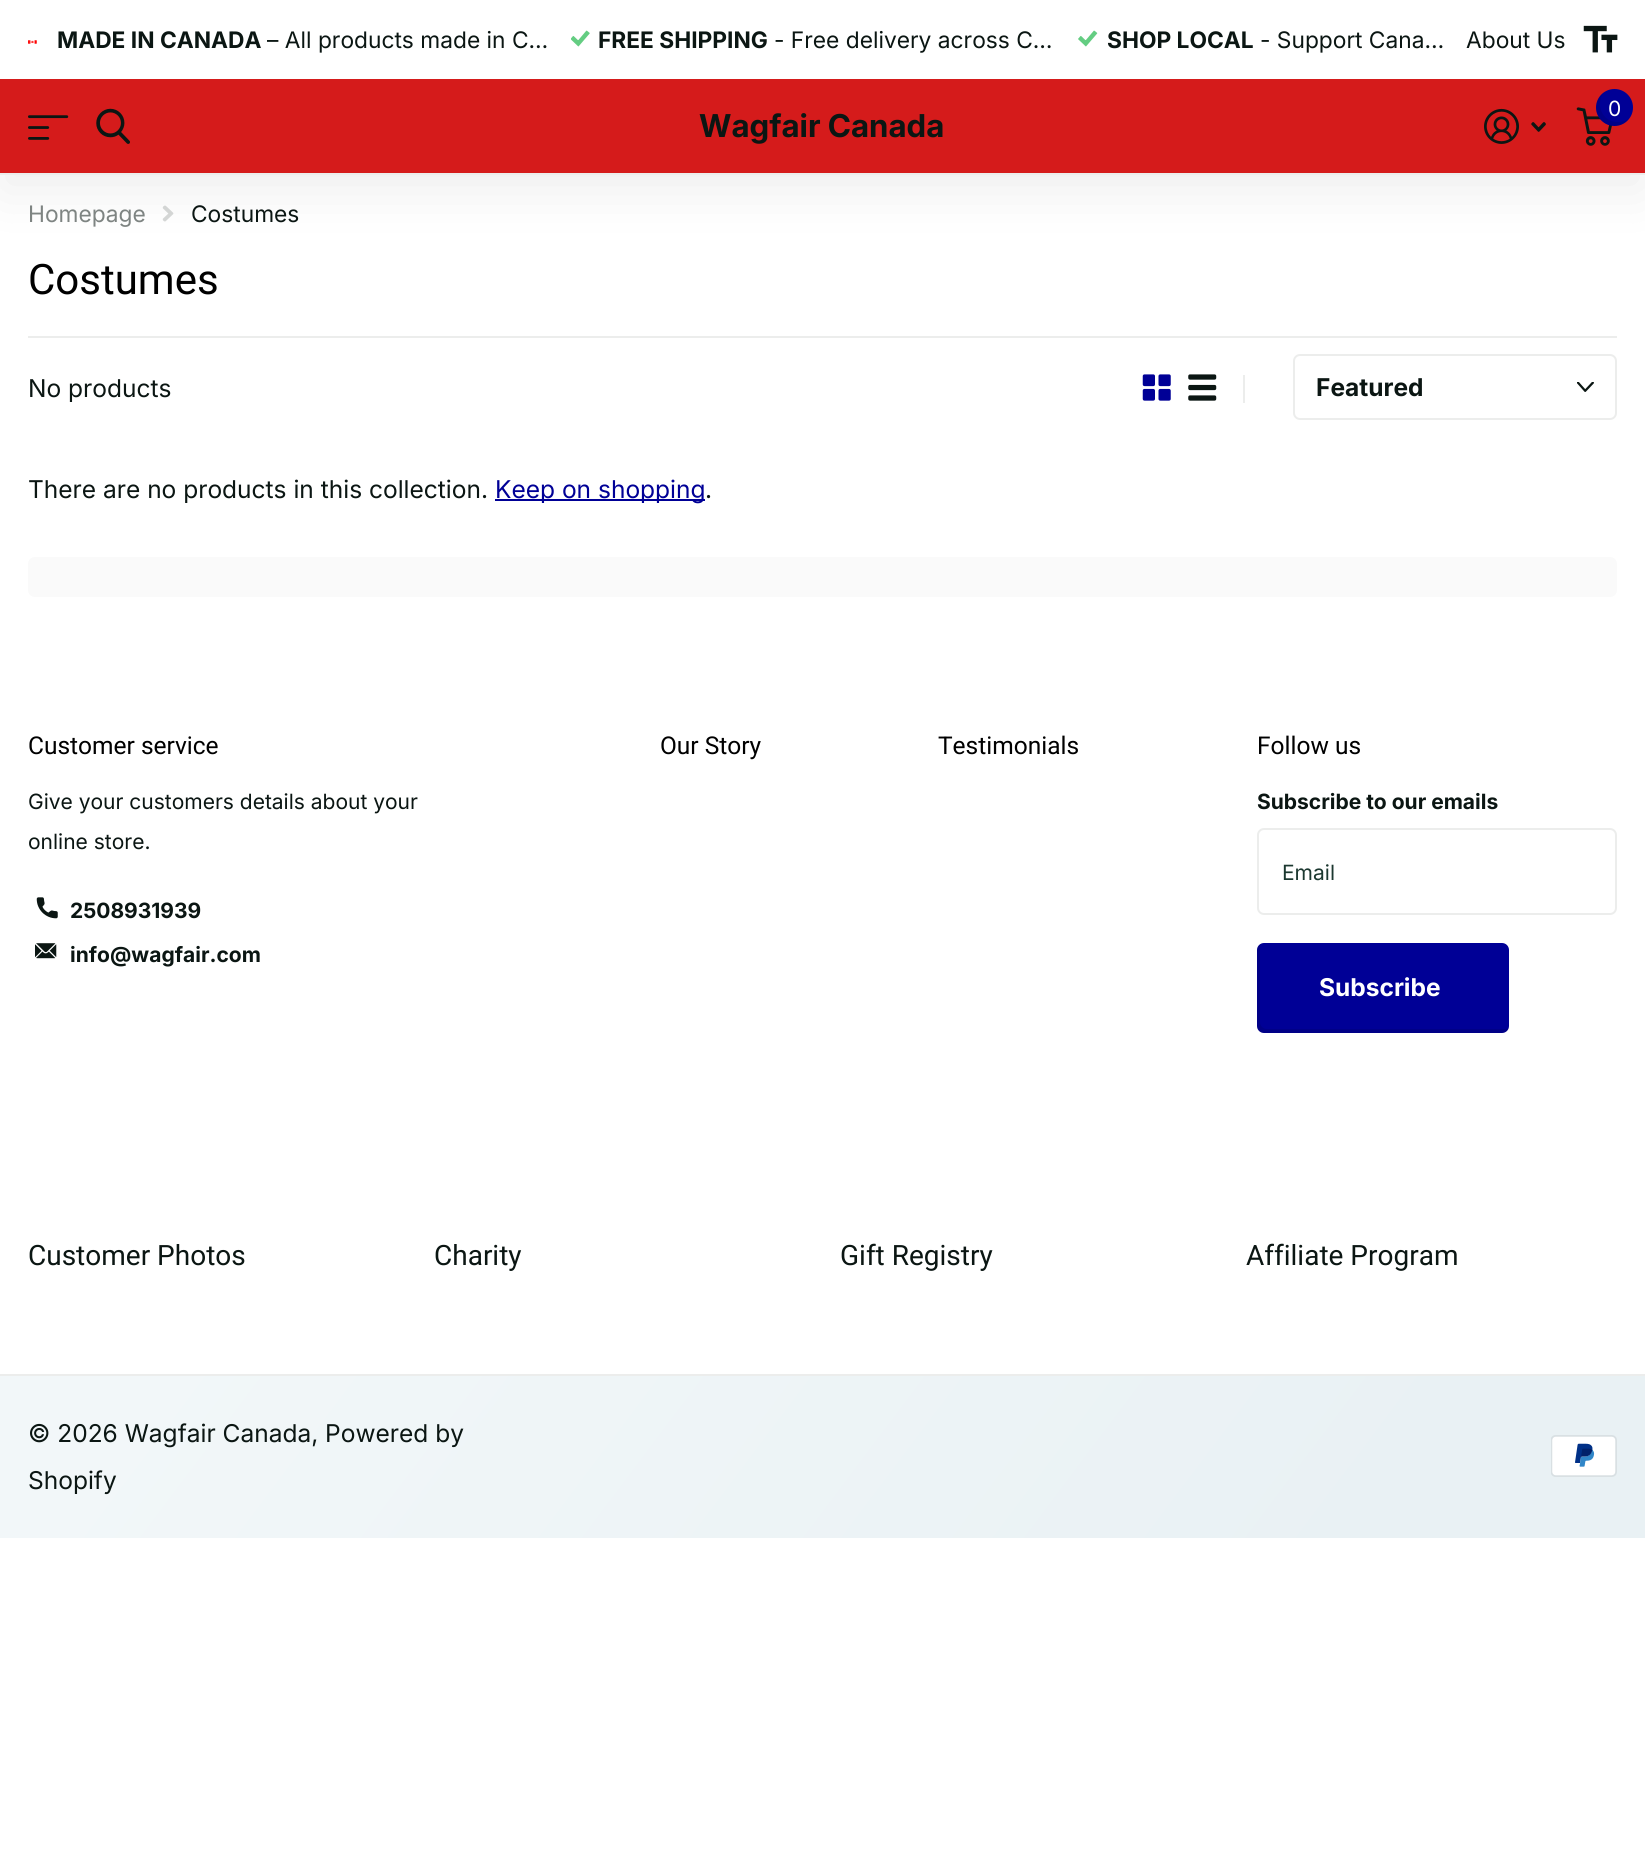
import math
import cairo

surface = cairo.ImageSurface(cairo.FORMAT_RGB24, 1645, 1872)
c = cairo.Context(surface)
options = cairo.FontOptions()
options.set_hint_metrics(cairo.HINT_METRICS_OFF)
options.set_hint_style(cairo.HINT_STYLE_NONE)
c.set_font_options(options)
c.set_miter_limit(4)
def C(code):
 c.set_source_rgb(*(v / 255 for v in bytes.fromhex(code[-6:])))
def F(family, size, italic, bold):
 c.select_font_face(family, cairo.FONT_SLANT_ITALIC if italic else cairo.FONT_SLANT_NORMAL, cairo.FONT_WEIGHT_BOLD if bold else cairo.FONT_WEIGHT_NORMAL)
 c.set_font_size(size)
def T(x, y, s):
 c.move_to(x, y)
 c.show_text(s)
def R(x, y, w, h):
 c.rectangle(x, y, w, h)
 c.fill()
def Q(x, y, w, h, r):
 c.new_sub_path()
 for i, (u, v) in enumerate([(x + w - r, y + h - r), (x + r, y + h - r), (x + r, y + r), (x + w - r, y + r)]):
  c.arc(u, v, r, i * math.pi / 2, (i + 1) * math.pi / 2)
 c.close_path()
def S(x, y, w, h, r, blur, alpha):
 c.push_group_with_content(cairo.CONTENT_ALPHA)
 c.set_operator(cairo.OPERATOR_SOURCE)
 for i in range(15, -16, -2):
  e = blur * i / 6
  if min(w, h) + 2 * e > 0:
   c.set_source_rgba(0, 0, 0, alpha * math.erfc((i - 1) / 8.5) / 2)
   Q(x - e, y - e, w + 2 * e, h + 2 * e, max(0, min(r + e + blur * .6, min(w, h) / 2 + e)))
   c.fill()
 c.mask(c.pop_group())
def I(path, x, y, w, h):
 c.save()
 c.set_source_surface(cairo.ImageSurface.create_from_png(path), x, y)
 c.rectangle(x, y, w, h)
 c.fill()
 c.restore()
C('ffffff')
c.paint()
I('10.png',162,205,12,17)
C('000000')
S(0,16,1645,175,0,28,.07)
C('d51b1b')
R(0,79,1645,94)
C('ecedec')
R(0,173,1645,2)
C('ffffff')
R(0,0,1645,79)
I('1.png',28,40,9,4)
F('Inter',22.75,0,1)
C('0b1613')
T(57,48,'MADE IN CANADA')
F('Inter',22.75,0,0)
T(267,48,'– All products made in C…')
I('2.png',571,30,19,17)
F('Inter',22.75,0,1)
T(598,48,'FREE SHIPPING')
F('Inter',22.75,0,0)
T(774,48,'- Free delivery across C…')
I('3.png',1078,30,20,17)
F('Inter',22.75,0,1)
T(1107,48,'SHOP LOCAL')
F('Inter',22.75,0,0)
T(1260,48,'- Support Cana…')
T(1466,48,'About Us')
I('4.png',1583,25,35,28)
I('5.png',28,115,41,25)
I('6.png',96,108,34,36)
F('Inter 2',31.5,0,1)
T(699,137,'Wagfair Canada')
I('7.png',1484,108,35,36)
I('8.png',1531,122,15,10)
I('9.png',1576,107,36,39)
C('000096')
c.arc(1614.5,107.5,18.5,0,2 * math.pi)
c.fill()
c.set_source_rgba(0,0,0,0.1)
c.new_path()
c.move_to(1629.5,118)
c.curve_to(1626.5,120.5,1623,122,1618,122)
c.curve_to(1600.5,122,1595.5,102.5,1604,92.5)
c.curve_to(1594.5,99,1593.5,112.5,1601.5,120.5)
c.curve_to(1609.5,128.5,1623,127.5,1629.5,118)
c.close_path()
c.fill()
F('Inter',21,0,0)
C('ffffff')
T(1608,116,'0')
F('Inter',22.75,0,0)
C('7e8482')
T(28,222,'Homepage')
C('0b1613')
T(191,222,'Costumes')
F('Roboto',42,0,0)
C('000000')
T(28,294,'Costumes')
C('ecedec')
R(28,336,1589,2)
F('Inter',24.5,0,0)
C('0b1613')
T(28,397,'No products')
I('11.png',1142,374,29,27)
I('12.png',1188,374,29,27)
C('ecedec')
R(1243,375,2,28)
I('13.png',1577,382,17,10)
Q(1294,355,322,64,6)
c.stroke()
F('Inter',24.5,0,1)
C('0b1613')
T(1316,396,'Featured')
F('Inter',24.5,0,0)
T(28,498,'There are no products in this collection.')
C('000096')
R(495,499,210,2)
T(495,498,'Keep on shopping')
C('0b1613')
T(705,498,'.')
C('fafafa')
Q(28,557,1589,40,7)
c.fill()
F('Roboto',24.5,0,0)
C('000000')
T(28,754,'Customer service')
F('Inter',21,0,0)
C('0b1613')
T(28,809,'Give your customers details about your')
T(28,849,'online store.')
I('14.png',36,897,22,22)
F('Inter',21,0,1)
T(70,918,'2508931939')
I('15.png',35,943,22,16)
T(70,962,'info@wagfair.com')
F('Roboto',24.5,0,0)
C('000000')
T(660,754,'Our Story')
T(938,754,'Testimonials')
T(1257,754,'Follow us')
F('Inter',21,0,1)
C('0b1613')
T(1257,809,'Subscribe to our emails')
Q(1258,829,358,85,6)
C('ecedec')
c.stroke()
F('Inter',21,0,0)
C('1c3830')
T(1282,880,'Email')
C('000096')
Q(1257,943,252,90,7)
c.fill()
c.set_source_rgba(0,0,0,0.1)
c.new_path()
c.move_to(1261,944)
c.curve_to(1259,945,1257,947,1257,950)
c.line_to(1257,1026)
c.curve_to(1257,1030,1260,1033,1264,1033)
c.line_to(1502,1033)
c.curve_to(1505,1033,1508,1031,1509,1028)
c.curve_to(1508,1029,1506,1029,1505,1029)
c.line_to(1267,1029)
c.curve_to(1263,1029,1260,1026,1260,1022)
c.line_to(1260,947)
c.close_path()
c.fill()
F('Inter',24.5,0,1)
C('ffffff')
T(1319,996,'Subscribe')
F('Roboto',28,0,0)
C('0b1613')
T(28,1265,'Customer Photos')
T(434,1265,'Charity')
T(840,1265,'Gift Registry')
T(1246,1265,'Affiliate Program')
gradient = cairo.LinearGradient(206,993,1439,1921)
gradient.add_color_stop_rgba(.11,0.949,0.969,0.976,1)
gradient.add_color_stop_rgba(.81,0.914,0.945,0.957,1)
c.set_source(gradient)
R(0,1376,1645,162)
C('ecedec')
R(0,1374,1645,2)
F('Inter',24.5,0,0)
C('0b1613')
T(28,1442,'© 2026 Wagfair Canada, Powered by')
T(28,1489,'Shopify')
I('16.png',1551,1435,66,42)
surface.write_to_png('o.png')
